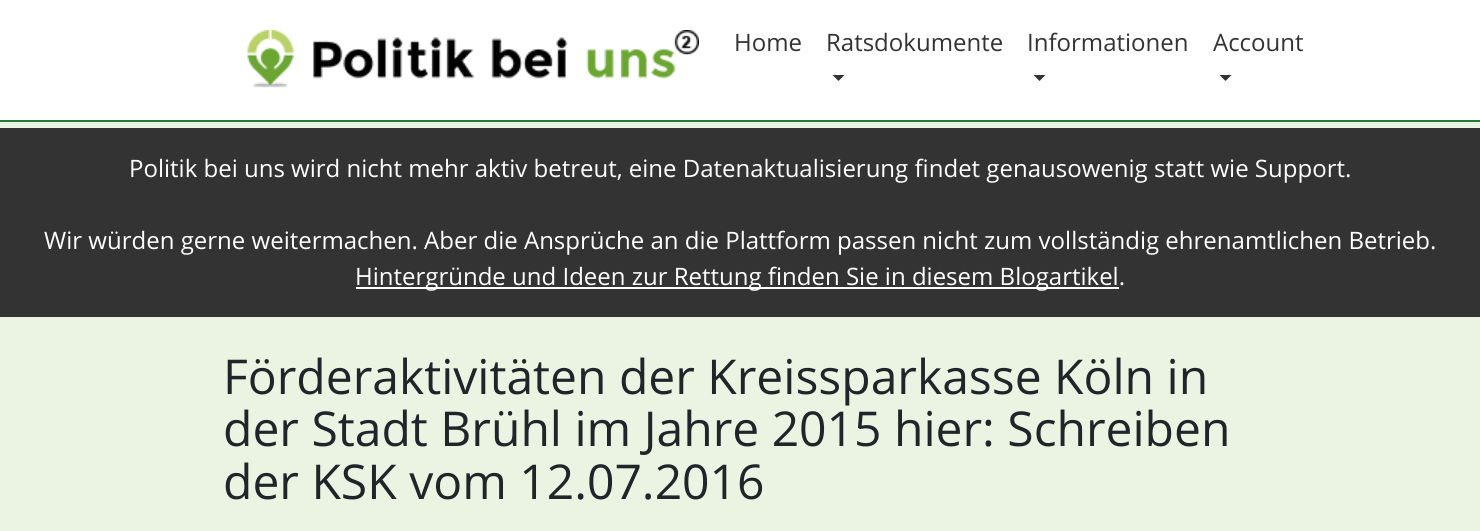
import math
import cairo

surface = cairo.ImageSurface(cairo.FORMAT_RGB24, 1480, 531)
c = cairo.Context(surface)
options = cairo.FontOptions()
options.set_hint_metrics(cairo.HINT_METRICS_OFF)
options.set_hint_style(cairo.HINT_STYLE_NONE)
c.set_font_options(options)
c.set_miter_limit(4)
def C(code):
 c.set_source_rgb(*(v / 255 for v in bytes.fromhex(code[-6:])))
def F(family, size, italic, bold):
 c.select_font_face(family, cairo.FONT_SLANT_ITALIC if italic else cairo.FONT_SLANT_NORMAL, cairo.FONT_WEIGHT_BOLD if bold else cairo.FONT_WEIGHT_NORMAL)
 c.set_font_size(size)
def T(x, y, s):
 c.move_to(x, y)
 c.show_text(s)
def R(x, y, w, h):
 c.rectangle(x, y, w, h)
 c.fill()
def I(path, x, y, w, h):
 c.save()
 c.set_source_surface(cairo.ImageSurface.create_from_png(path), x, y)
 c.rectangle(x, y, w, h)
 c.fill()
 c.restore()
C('ebf4e3')
c.paint()
C('ffffff')
R(0,0,1480,120)
C('1e7e34')
R(0,120,1480,2)
I('1.png',247,30,452,58)
F('Open Sans',24,0,0)
C('333333')
T(734,51,'Home')
T(826,51,'Ratsdokumente')
c.new_path()
c.move_to(832.5,75)
c.line_to(844.5,75)
c.line_to(838.5,81)
c.close_path()
c.fill()
T(1027,51,'Informationen')
c.new_path()
c.move_to(1033.5,75)
c.line_to(1045.5,75)
c.line_to(1039.5,81)
c.close_path()
c.fill()
T(1213,51,'Account')
c.new_path()
c.move_to(1219.5,75)
c.line_to(1231.5,75)
c.line_to(1225.5,81)
c.close_path()
c.fill()
R(0,128,1480,189)
C('ffffff')
T(129,177,'Politik bei uns wird nicht mehr aktiv betreut, eine Datenaktualisierung findet genausowenig statt wie Support.')
T(44,249,'Wir würden gerne weitermachen. Aber die Ansprüche an die Plattform passen nicht zum vollständig ehrenamtlichen Betrieb.')
R(356,287,763,2)
T(355,285,'Hintergründe und Ideen zur Rettung finden Sie in diesem Blogartikel.')
F('Open Sans',48,0,0)
C('212529')
T(223,394,'Förderaktivitäten der Kreissparkasse Köln in')
T(223,446,'der Stadt Brühl im Jahre 2015 hier: Schreiben')
T(223,499,'der KSK vom 12.07.2016')
surface.write_to_png('o.png')
